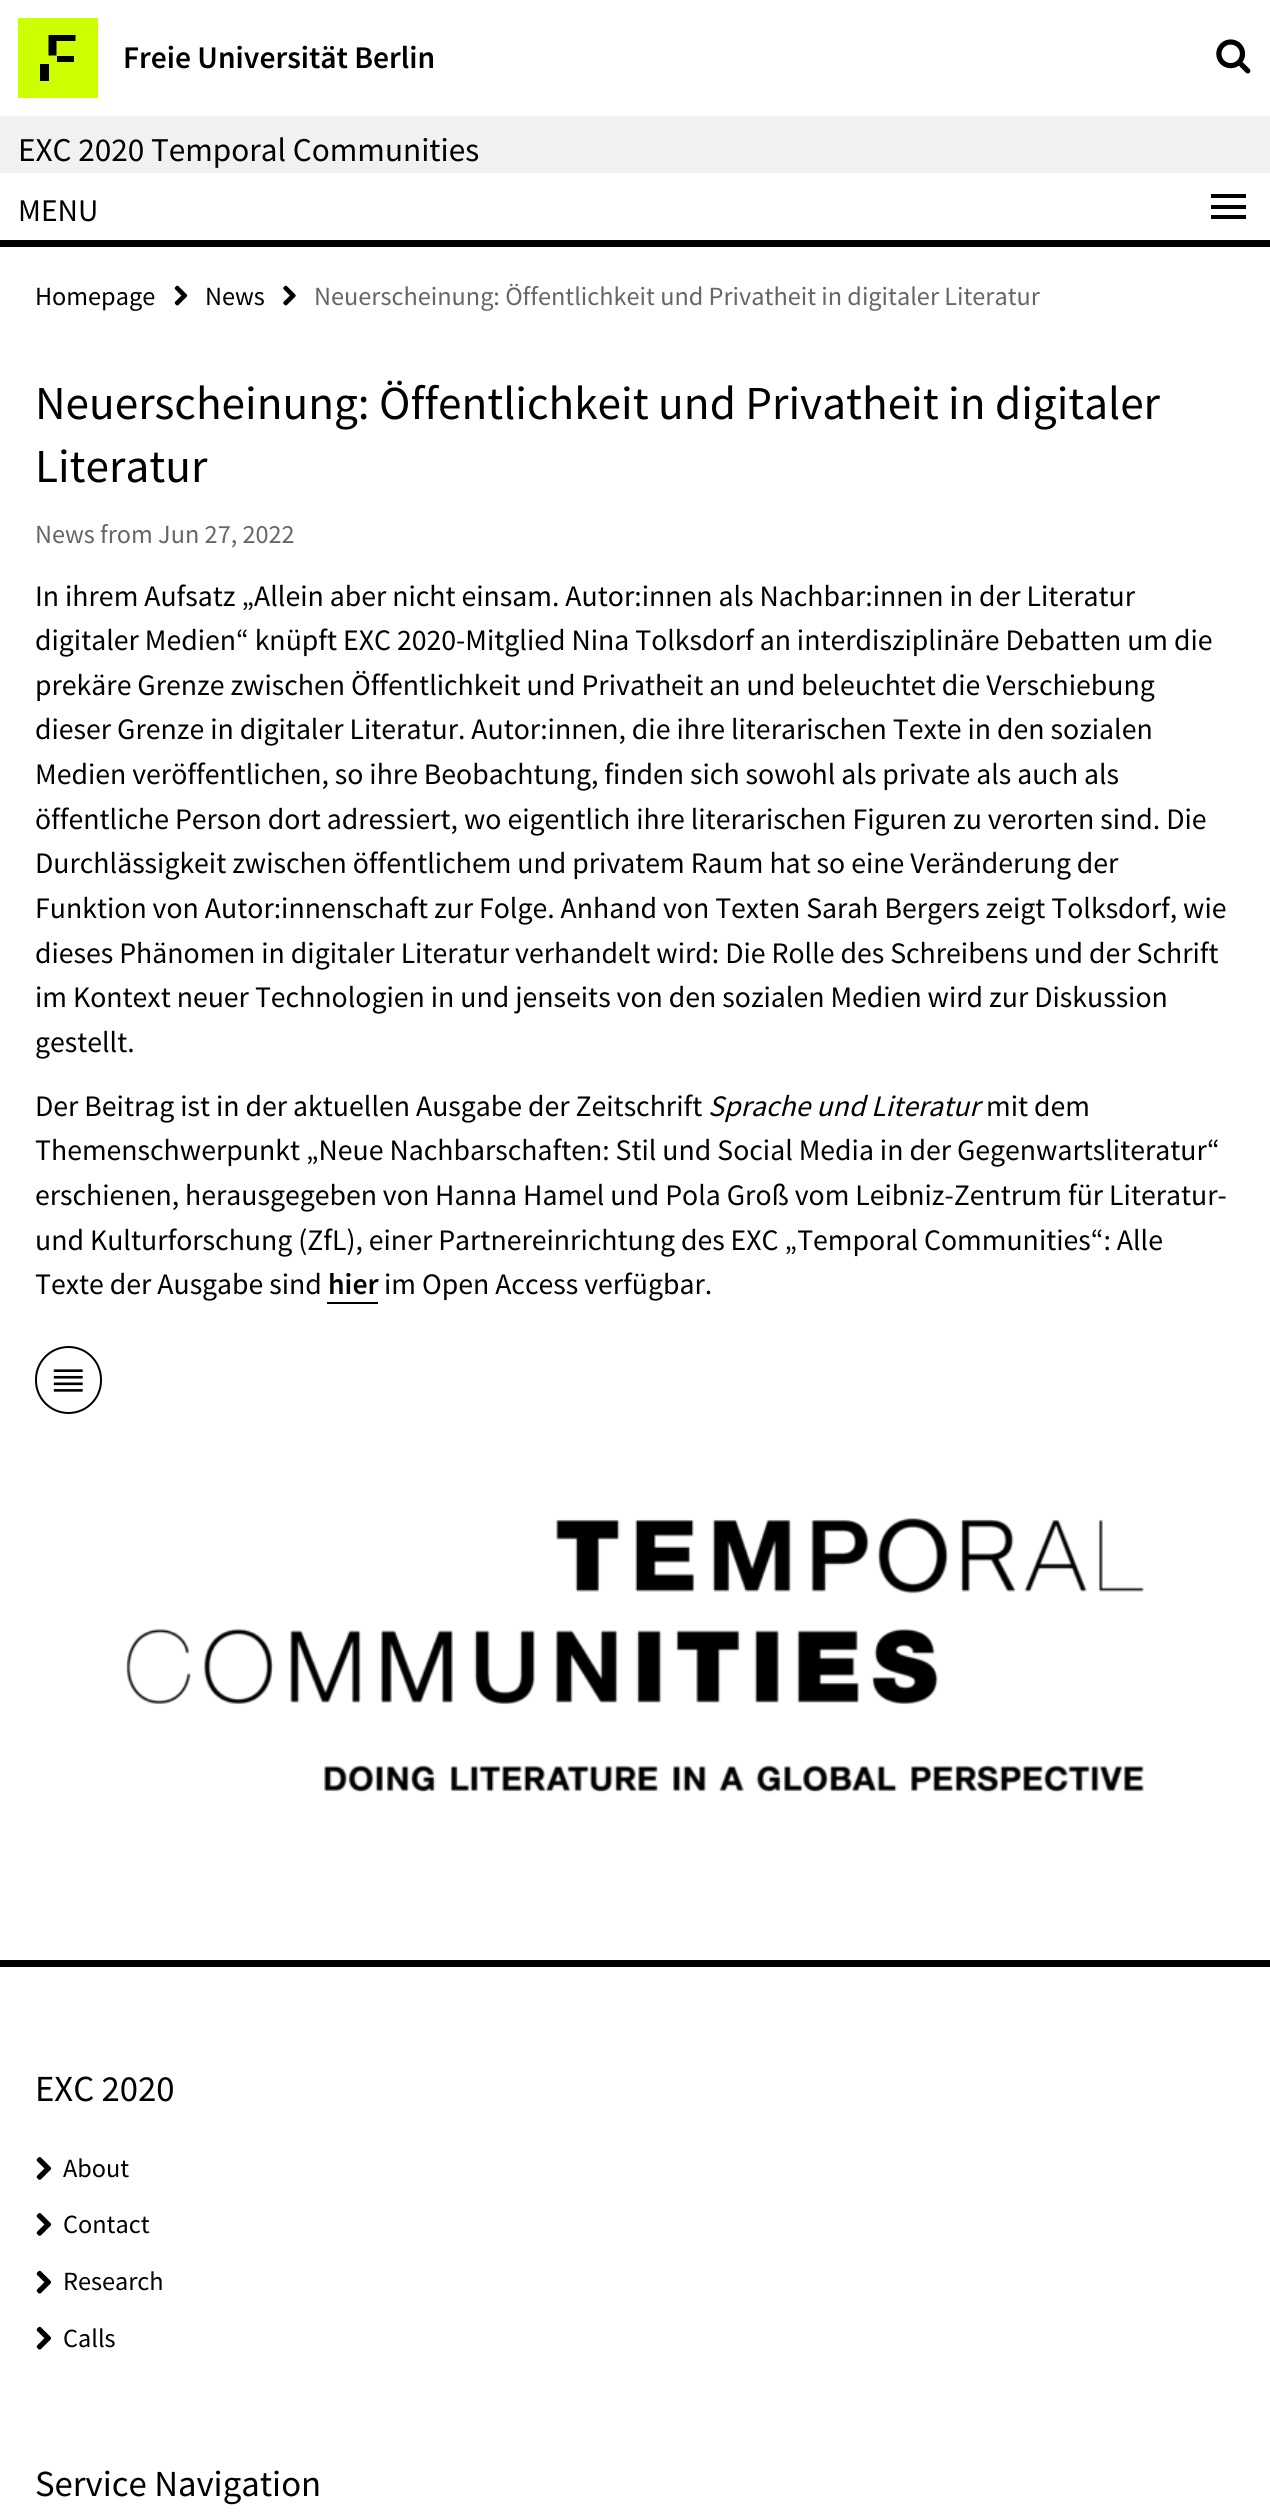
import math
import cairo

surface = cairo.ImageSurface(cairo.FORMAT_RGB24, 1270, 2520)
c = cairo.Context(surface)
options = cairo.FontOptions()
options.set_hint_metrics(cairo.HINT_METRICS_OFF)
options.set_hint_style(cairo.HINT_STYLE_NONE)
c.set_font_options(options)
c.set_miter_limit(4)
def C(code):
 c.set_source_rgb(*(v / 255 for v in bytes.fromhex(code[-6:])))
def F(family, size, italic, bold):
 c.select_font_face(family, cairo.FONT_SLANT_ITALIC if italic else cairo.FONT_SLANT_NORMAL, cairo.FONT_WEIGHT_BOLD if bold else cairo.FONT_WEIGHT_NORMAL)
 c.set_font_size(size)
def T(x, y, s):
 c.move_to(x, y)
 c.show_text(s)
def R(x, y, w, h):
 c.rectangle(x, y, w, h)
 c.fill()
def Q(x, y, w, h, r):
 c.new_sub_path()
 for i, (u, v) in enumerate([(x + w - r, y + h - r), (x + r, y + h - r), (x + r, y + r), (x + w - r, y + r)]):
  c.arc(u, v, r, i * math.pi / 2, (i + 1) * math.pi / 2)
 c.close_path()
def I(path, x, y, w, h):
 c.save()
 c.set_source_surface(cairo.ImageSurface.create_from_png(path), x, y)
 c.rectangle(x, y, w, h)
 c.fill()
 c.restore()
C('ffffff')
c.paint()
C('ccff00')
R(18,18,80,80)
C('000000')
c.new_path()
c.move_to(48.5,35)
c.line_to(75.5,35)
c.line_to(75.5,41)
c.line_to(56.5,41)
c.line_to(56.5,55.5)
c.line_to(48.5,55.5)
c.close_path()
c.fill()
R(57,56,17,6)
R(40,64,9,17)
F('Source Sans Pro SemiBold',31.5,0,0)
T(123,68,'Freie Universität Berlin')
I('1.png',1216,39,35,35)
C('f1f1f1')
R(0,116,1270,57)
F('Source Sans Pro',33.25,0,0)
C('000000')
T(18,161,'EXC 2020 Temporal Communities')
R(0,240,1270,7)
F('Source Sans Pro',31.5,0,0)
T(18,221,'MENU')
R(1211,194,35,4)
R(1211,205,35,4)
R(1211,215,35,4)
F('Source Sans Pro',26.25,0,0)
T(35,305,'Homepage')
I('2.png',174,285,14,21)
T(205,305,'News')
I('3.png',283,285,13,21)
C('666666')
T(314,305,'Neuerscheinung: Öffentlichkeit und Privatheit in digitaler Literatur')
F('Source Sans Pro',47.25,0,0)
C('000000')
T(35,419,'Neuerscheinung: Öffentlichkeit und Privatheit in digitaler')
T(35,482,'Literatur')
F('Source Sans Pro',26.25,0,0)
C('666666')
T(35,543,'News from Jun 27, 2022')
F('Source Sans Pro',29.75,0,0)
C('000000')
T(35,606,'In ihrem Aufsatz „Allein aber nicht einsam. Autor:innen als Nachbar:innen in der Literatur')
T(35,650,'digitaler Medien“ knüpft EXC 2020-Mitglied Nina Tolksdorf an interdisziplinäre Debatten um die')
T(35,695,'prekäre Grenze zwischen Öffentlichkeit und Privatheit an und beleuchtet die Verschiebung')
T(35,739,'dieser Grenze in digitaler Literatur. Autor:innen, die ihre literarischen Texte in den sozialen')
T(35,784,'Medien veröffentlichen, so ihre Beobachtung, finden sich sowohl als private als auch als')
T(35,829,'öffentliche Person dort adressiert, wo eigentlich ihre literarischen Figuren zu verorten sind. Die')
T(35,873,'Durchlässigkeit zwischen öffentlichem und privatem Raum hat so eine Veränderung der')
T(35,918,'Funktion von Autor:innenschaft zur Folge. Anhand von Texten Sarah Bergers zeigt Tolksdorf, wie')
T(35,963,'dieses Phänomen in digitaler Literatur verhandelt wird: Die Rolle des Schreibens und der Schrift')
T(35,1007,'im Kontext neuer Technologien in und jenseits von den sozialen Medien wird zur Diskussion')
T(35,1052,'gestellt.')
T(35,1116,'Der Beitrag ist in der aktuellen Ausgabe der Zeitschrift')
F('Source Sans Pro',29.75,1,0)
T(708,1116,'Sprache und Literatur')
F('Source Sans Pro',29.75,0,0)
T(986,1116,'mit dem')
T(35,1160,'Themenschwerpunkt „Neue Nachbarschaften: Stil und Social Media in der Gegenwartsliteratur“')
T(35,1205,'erschienen, herausgegeben von Hanna Hamel und Pola Groß vom Leibniz-Zentrum für Literatur-')
T(35,1250,'und Kulturforschung (ZfL), einer Partnereinrichtung des EXC „Temporal Communities“: Alle')
T(35,1294,'Texte der Ausgabe sind')
F('Source Sans Pro SemiBold',29.75,0,0)
T(328,1294,'hier')
R(327,1302,51,2)
F('Source Sans Pro',29.75,0,0)
T(384,1294,'im Open Access verfügbar.')
Q(36,1347,65,66,32.5)
c.stroke()
I('4.png',53,1369,30,23)
I('5.png',125,1517,1019,276)
R(0,1960,1270,7)
F('Source Sans Pro',36.75,0,0)
T(35,2101,'EXC 2020')
I('6.png',36,2157,16,23)
F('Source Sans Pro',26.25,0,0)
T(63,2177,'About')
I('6.png',36,2213,16,23)
T(63,2233,'Contact')
I('7.png',36,2270,16,24)
T(63,2290,'Research')
I('7.png',36,2326,16,24)
T(63,2347,'Calls')
F('Source Sans Pro',36.75,0,0)
T(35,2496,'Service Navigation')
surface.write_to_png('o.png')
